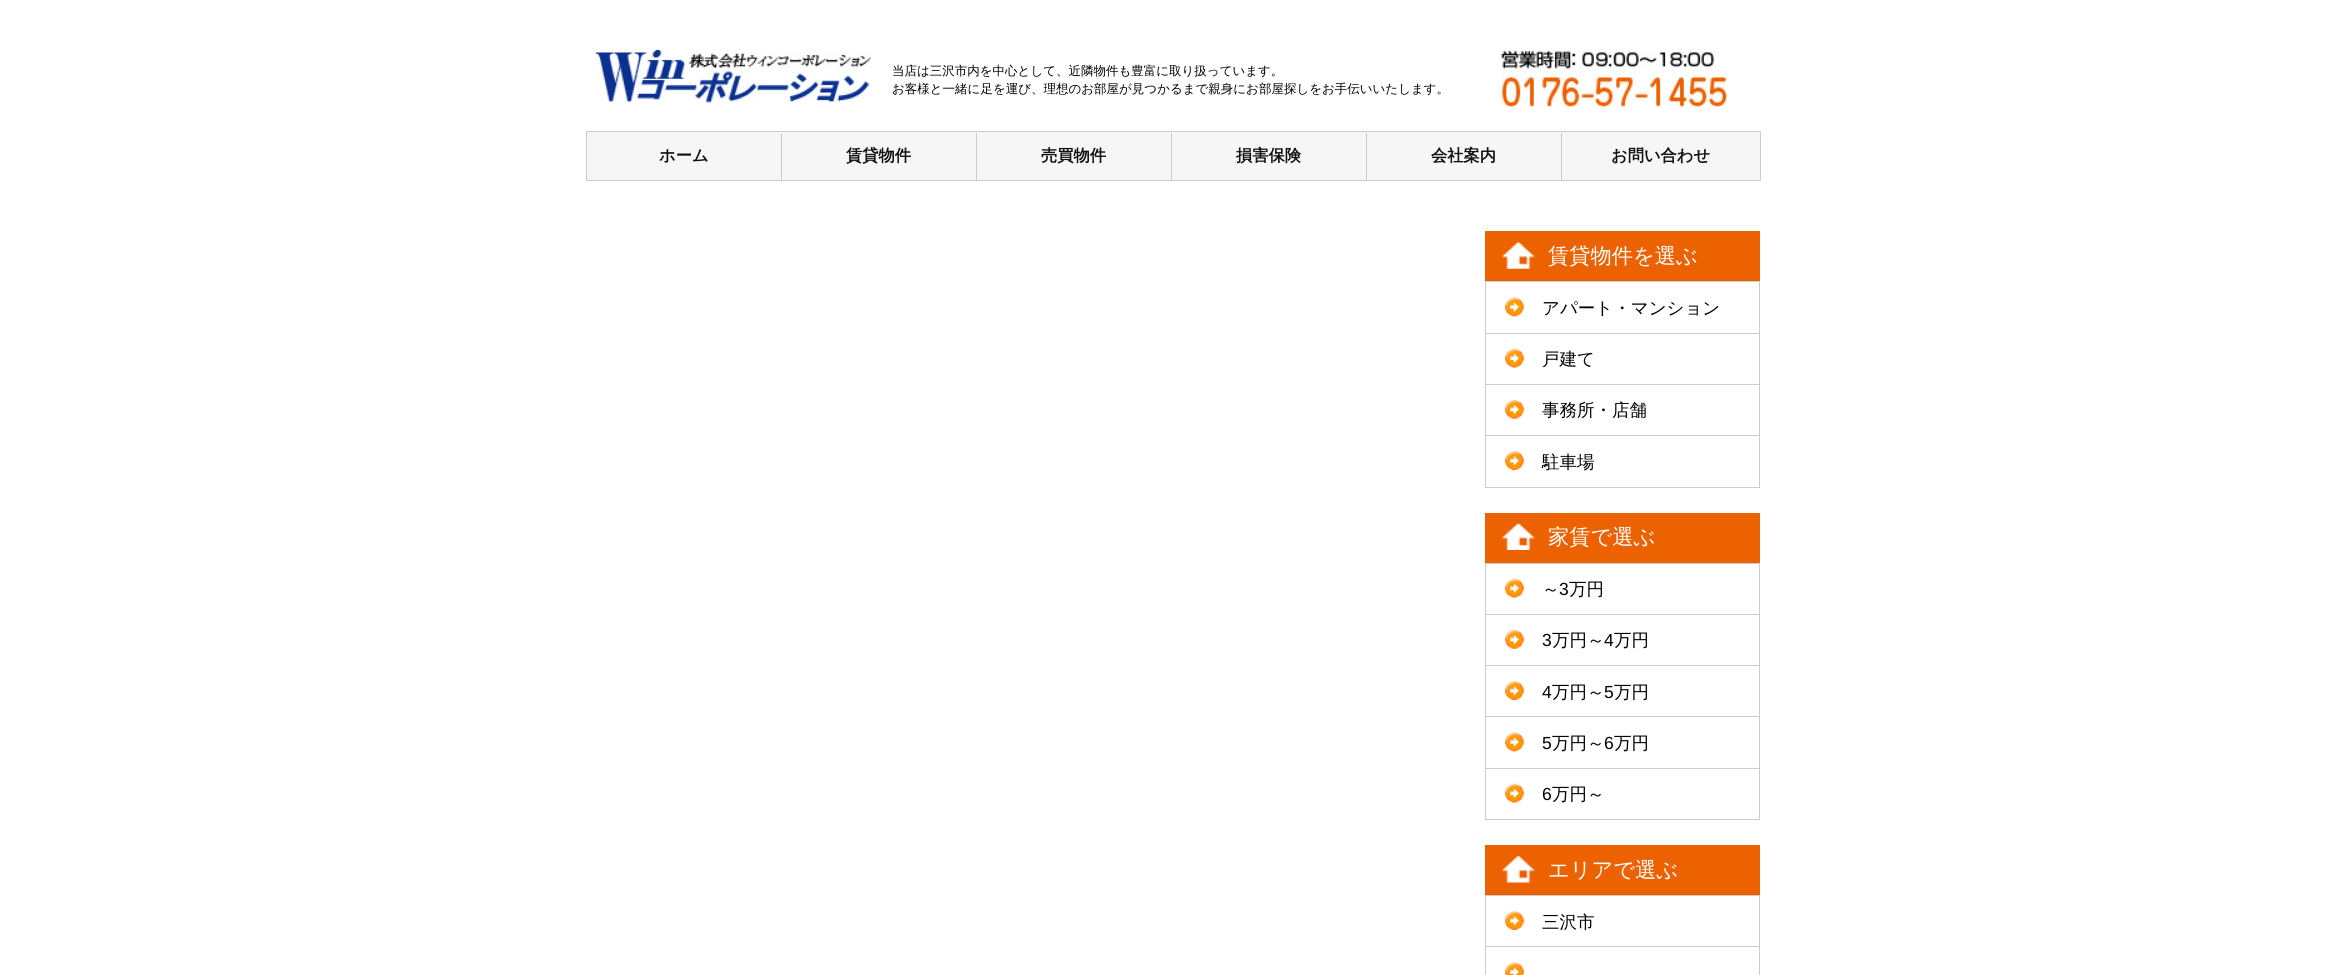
import math
import cairo

surface = cairo.ImageSurface(cairo.FORMAT_RGB24, 2346, 975)
c = cairo.Context(surface)
options = cairo.FontOptions()
options.set_hint_metrics(cairo.HINT_METRICS_OFF)
options.set_hint_style(cairo.HINT_STYLE_NONE)
c.set_font_options(options)
c.set_miter_limit(4)
def C(code):
 c.set_source_rgb(*(v / 255 for v in bytes.fromhex(code[-6:])))
def F(family, size, italic, bold):
 c.select_font_face(family, cairo.FONT_SLANT_ITALIC if italic else cairo.FONT_SLANT_NORMAL, cairo.FONT_WEIGHT_BOLD if bold else cairo.FONT_WEIGHT_NORMAL)
 c.set_font_size(size)
def T(x, y, s):
 c.move_to(x, y)
 c.show_text(s)
def R(x, y, w, h):
 c.rectangle(x, y, w, h)
 c.fill()
def I(path, x, y, w, h):
 c.save()
 c.set_source_surface(cairo.ImageSurface.create_from_png(path), x, y)
 c.rectangle(x, y, w, h)
 c.fill()
 c.restore()
C('ffffff')
c.paint()
I('1.png',595,50,277,53)
F('WenQuanYi Zen Hei Medium',12.5,0,0)
C('000000')
T(892,75,'当店は三沢市内を中心として、近隣物件も豊富に取り扱っています。')
T(892,93,'お客様と一緒に足を運び、理想のお部屋が見つかるまで親身にお部屋探しをお手伝いいたします。')
I('2.png',1501,50,226,57)
C('f6f6f6')
c.rectangle(586.5,131.5,1174,49)
c.fill_preserve()
C('cccccc')
c.set_line_width(1)
c.stroke()
R(781,133,1,47)
F('WenQuanYi Zen Hei',16.25,0,1)
C('111111')
T(659,161,'ホーム')
C('cccccc')
R(976,133,1,47)
C('111111')
T(846,161,'賃貸物件')
C('cccccc')
R(1171,133,1,47)
C('111111')
T(1041,161,'売買物件')
C('cccccc')
R(1366,133,1,47)
C('111111')
T(1236,161,'損害保険')
C('cccccc')
R(1561,133,1,47)
C('111111')
T(1431,161,'会社案内')
T(1611,161,'お問い合わせ')
C('ec6100')
R(1485,231,275,50)
I('3.png',1502,242,33,27)
F('WenQuanYi Zen Hei Medium',21.25,0,0)
C('ffffff')
T(1548,263,'賃貸物件を選ぶ')
c.rectangle(1485.5,281.5,274,206)
C('cccccc')
c.stroke()
R(1486,333,273,1)
I('4.png',1505,297,19,20)
F('WenQuanYi Zen Hei Medium',17.5,0,0)
C('000000')
T(1542,314,'アパート・マンション')
C('cccccc')
R(1486,384,273,1)
I('5.png',1505,348,19,20)
C('000000')
T(1542,365,'戸建て')
C('cccccc')
R(1486,435,273,1)
I('6.png',1505,400,19,19)
C('000000')
T(1542,416,'事務所・店舗')
I('7.png',1505,451,19,19)
T(1542,468,'駐車場')
C('ec6100')
R(1485,513,275,50)
I('8.png',1502,523,33,27)
F('WenQuanYi Zen Hei Medium',21.25,0,0)
C('ffffff')
T(1548,544,'家賃で選ぶ')
c.rectangle(1485.5,563.5,274,256)
C('cccccc')
c.stroke()
R(1486,614,273,1)
I('9.png',1505,578,19,20)
F('WenQuanYi Zen Hei Medium',17.5,0,0)
C('000000')
T(1542,595,'～')
F('Liberation Sans',17.5,0,0)
T(1559,595,'3')
F('WenQuanYi Zen Hei Medium',17.5,0,0)
T(1569,595,'万円')
C('cccccc')
R(1486,665,273,1)
I('6.png',1505,630,19,19)
F('Liberation Sans',17.5,0,0)
C('000000')
T(1542,646,'3')
F('WenQuanYi Zen Hei Medium',17.5,0,0)
T(1552,646,'万円～')
F('Liberation Sans',17.5,0,0)
T(1604,646,'4')
F('WenQuanYi Zen Hei Medium',17.5,0,0)
T(1614,646,'万円')
C('cccccc')
R(1486,716,273,1)
I('7.png',1505,681,19,19)
F('Liberation Sans',17.5,0,0)
C('000000')
T(1542,698,'4')
F('WenQuanYi Zen Hei Medium',17.5,0,0)
T(1552,698,'万円～')
F('Liberation Sans',17.5,0,0)
T(1604,698,'5')
F('WenQuanYi Zen Hei Medium',17.5,0,0)
T(1614,698,'万円')
C('cccccc')
R(1486,768,273,1)
I('4.png',1505,732,19,20)
F('Liberation Sans',17.5,0,0)
C('000000')
T(1542,749,'5')
F('WenQuanYi Zen Hei Medium',17.5,0,0)
T(1552,749,'万円～')
F('Liberation Sans',17.5,0,0)
T(1604,749,'6')
F('WenQuanYi Zen Hei Medium',17.5,0,0)
T(1614,749,'万円')
I('5.png',1505,783,19,20)
F('Liberation Sans',17.5,0,0)
T(1542,800,'6')
F('WenQuanYi Zen Hei Medium',17.5,0,0)
T(1552,800,'万円～')
C('ec6100')
R(1485,845,275,50)
I('10.png',1502,856,33,27)
F('WenQuanYi Zen Hei Medium',21.25,0,0)
C('ffffff')
T(1548,877,'エリアで選ぶ')
c.rectangle(1485.5,895.5,274,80)
C('cccccc')
c.stroke()
R(1486,946,273,1)
I('7.png',1505,911,19,19)
F('WenQuanYi Zen Hei Medium',17.5,0,0)
C('000000')
T(1542,928,'三沢市')
I('11.png',1505,962,19,13)
surface.write_to_png('o.png')
